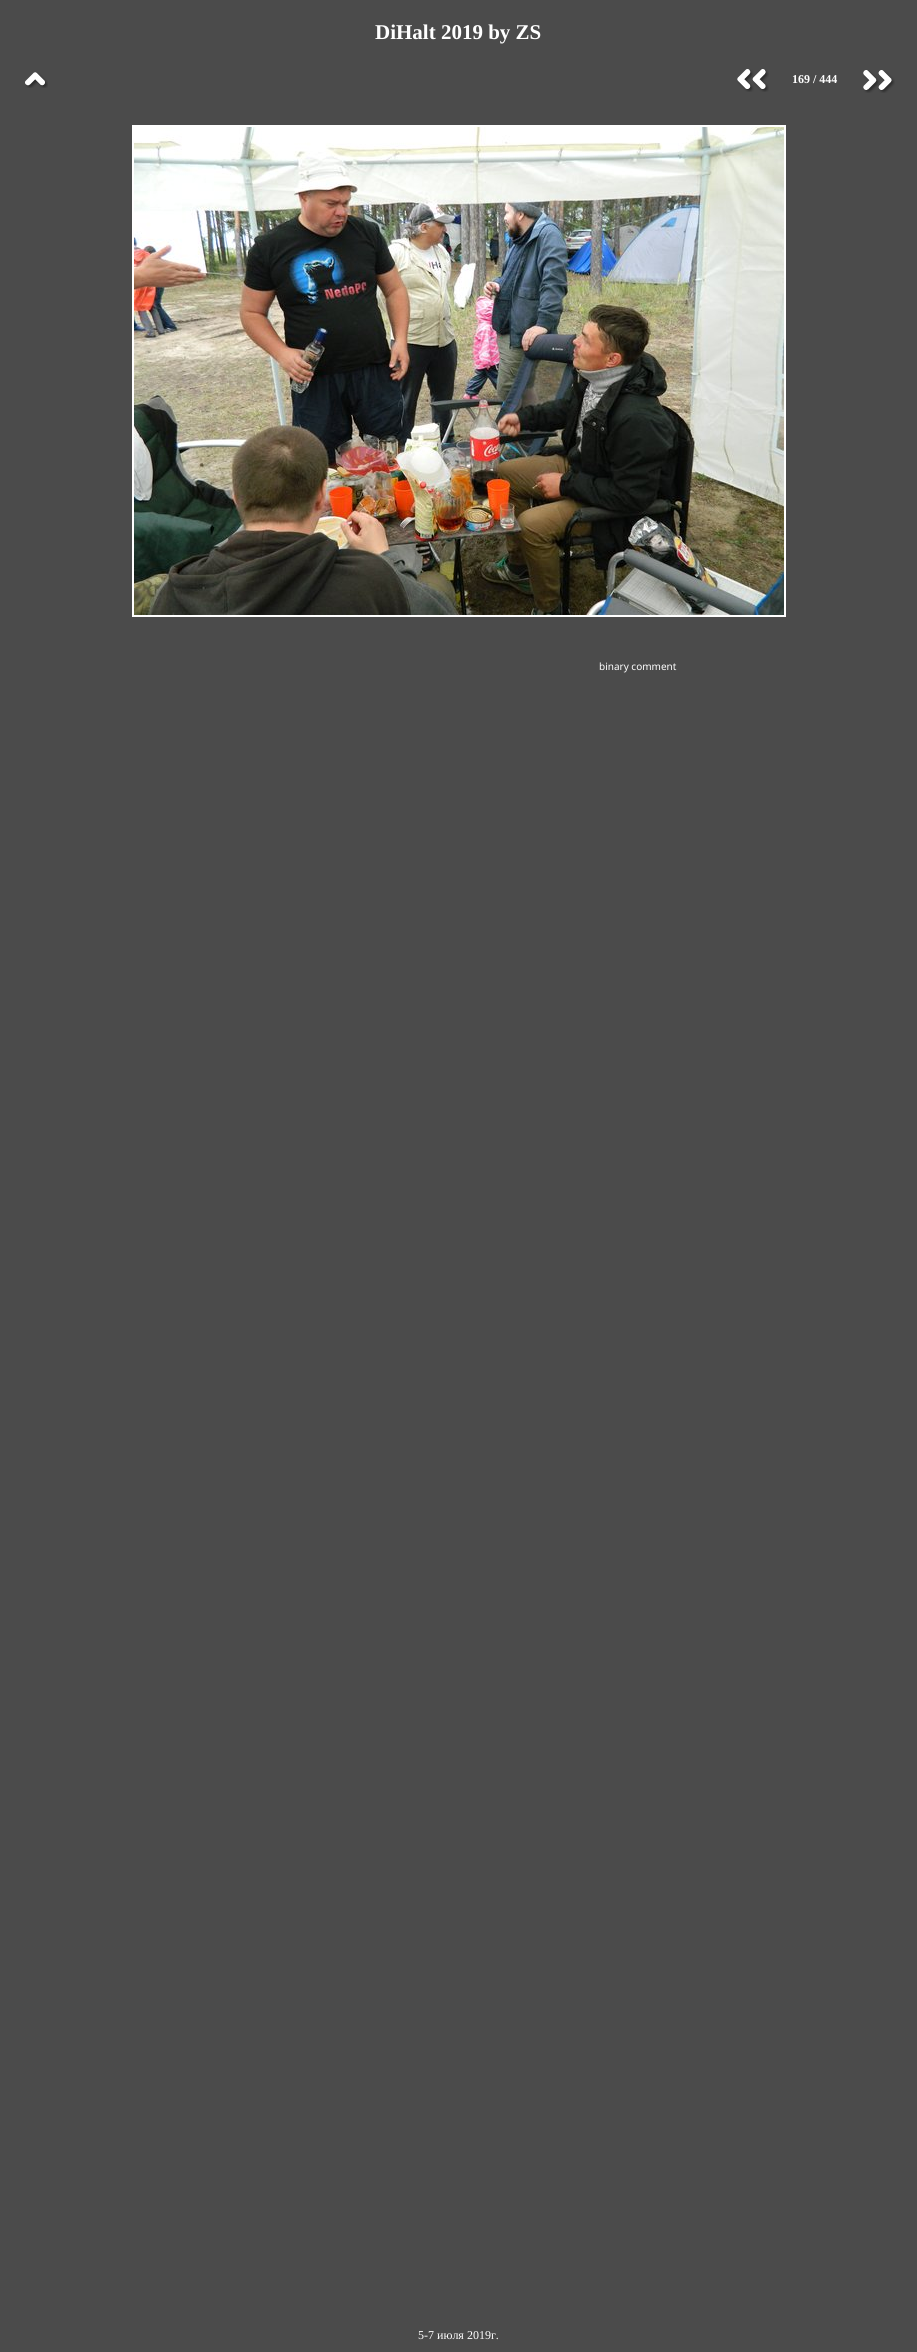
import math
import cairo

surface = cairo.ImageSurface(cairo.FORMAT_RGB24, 917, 2352)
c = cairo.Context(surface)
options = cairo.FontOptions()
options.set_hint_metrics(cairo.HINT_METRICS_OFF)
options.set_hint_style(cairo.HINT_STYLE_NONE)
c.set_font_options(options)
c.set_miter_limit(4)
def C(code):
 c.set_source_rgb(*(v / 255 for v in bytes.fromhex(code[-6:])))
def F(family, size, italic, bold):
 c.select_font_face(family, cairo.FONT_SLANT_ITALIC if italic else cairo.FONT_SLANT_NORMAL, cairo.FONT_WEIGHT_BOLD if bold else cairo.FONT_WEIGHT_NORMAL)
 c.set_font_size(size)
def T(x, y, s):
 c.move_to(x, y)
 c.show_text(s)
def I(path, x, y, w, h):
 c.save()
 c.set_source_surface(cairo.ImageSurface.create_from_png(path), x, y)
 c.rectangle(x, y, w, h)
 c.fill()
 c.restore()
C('4b4b4b')
c.paint()
F('Liberation Serif',21,0,1)
C('ffffff')
T(375,39,'DiHalt 2019 by ZS')
I('1.png',25,72,23,16)
I('2.png',737,69,32,23)
F('Liberation Serif',12,0,1)
T(792,83,'169 / 444')
I('3.png',863,70,32,23)
c.rectangle(133,126,652,490)
c.stroke()
I('4.png',134,127,650,488)
F('Noto Sans',10,0,0)
T(599,670,'binary comment')
F('Liberation Serif',12,0,0)
T(418,2339,'5-7 июля 2019г.')
surface.write_to_png('o.png')
